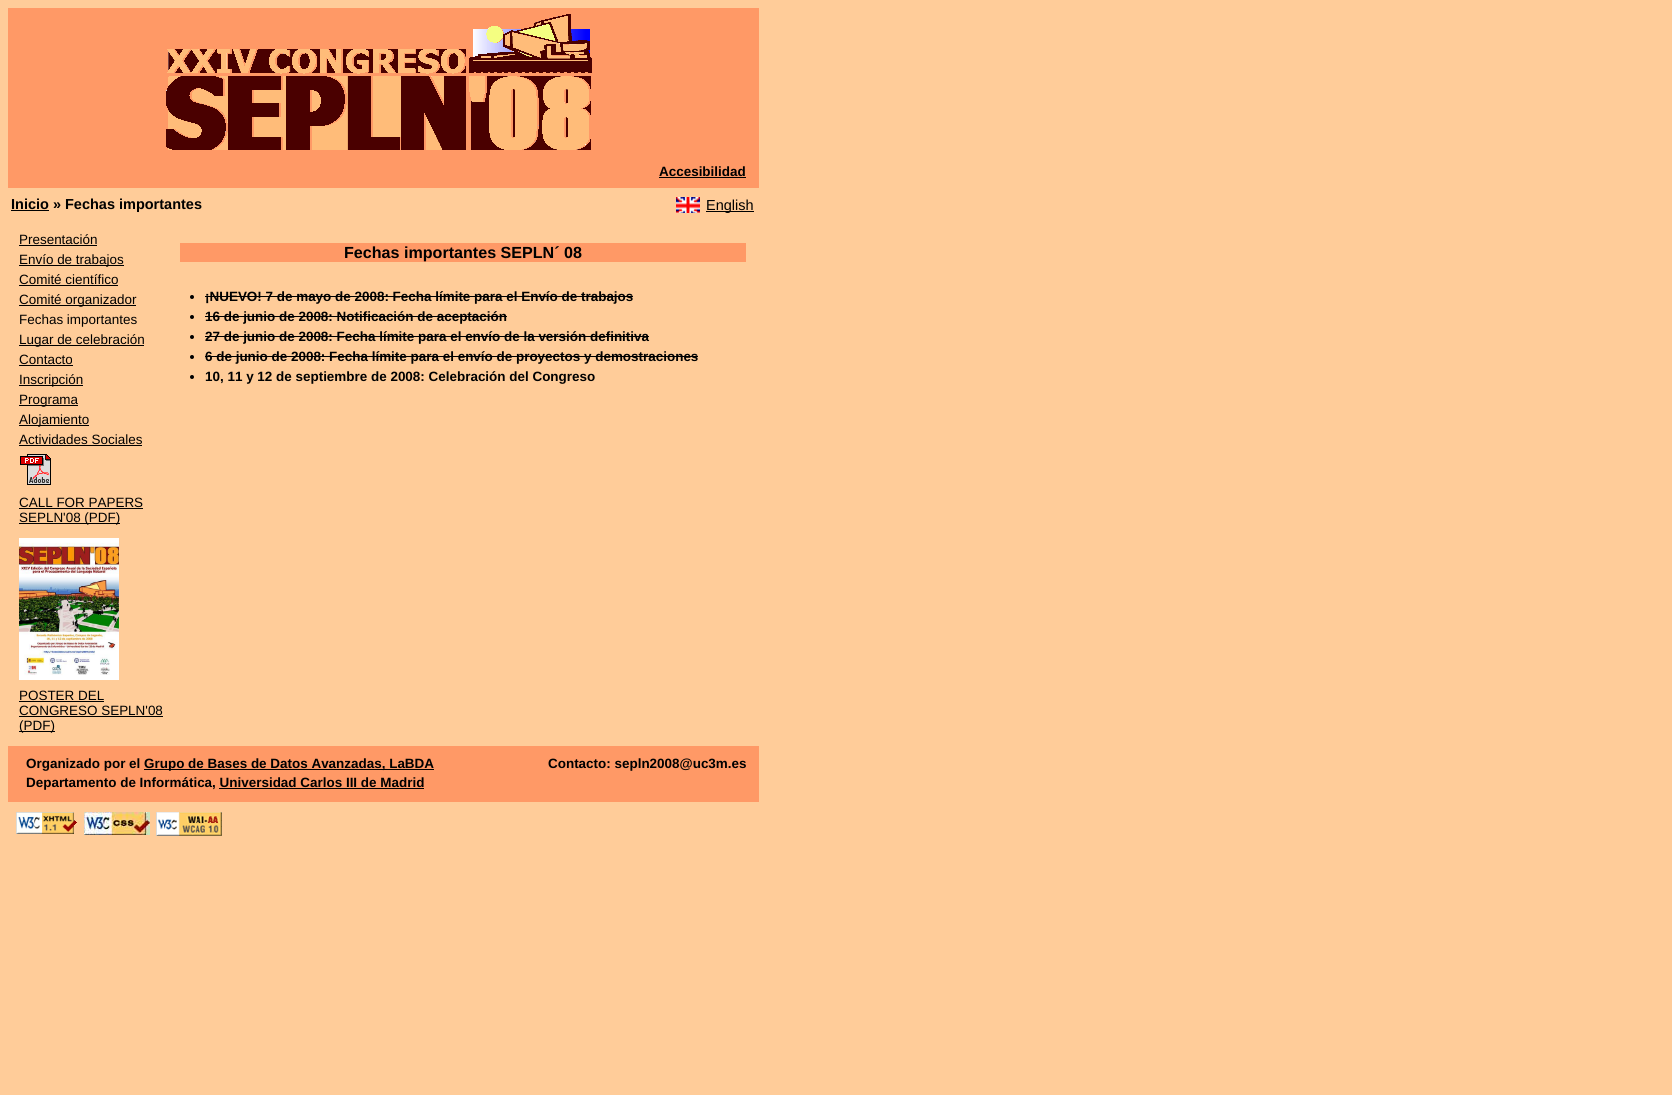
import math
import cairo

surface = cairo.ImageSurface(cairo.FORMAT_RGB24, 1672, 1095)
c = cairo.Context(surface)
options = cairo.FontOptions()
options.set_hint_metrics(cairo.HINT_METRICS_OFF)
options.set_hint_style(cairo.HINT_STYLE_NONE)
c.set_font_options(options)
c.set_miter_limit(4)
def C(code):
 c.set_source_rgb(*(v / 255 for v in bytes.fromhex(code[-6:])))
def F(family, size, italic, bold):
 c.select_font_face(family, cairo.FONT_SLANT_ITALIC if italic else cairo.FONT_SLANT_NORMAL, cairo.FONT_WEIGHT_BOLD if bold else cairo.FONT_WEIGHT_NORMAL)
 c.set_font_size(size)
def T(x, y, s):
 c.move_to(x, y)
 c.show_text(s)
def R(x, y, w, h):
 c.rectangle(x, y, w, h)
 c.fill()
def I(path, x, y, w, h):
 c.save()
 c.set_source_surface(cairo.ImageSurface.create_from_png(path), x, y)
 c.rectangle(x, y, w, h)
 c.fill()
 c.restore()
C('ffcc99')
c.paint()
C('ff9966')
R(8,8,751,180)
I('1.png',166,14,426,136)
F('Liberation Sans',13.45,0,1)
C('000000')
T(659,176,'Accesibilidad')
R(659,177,87,1)
R(11,210,38,1)
F('Liberation Sans',14.5,0,1)
T(11,209,'Inicio » Fechas importantes')
I('2.png',676,197,24,16)
R(706,211,48,1)
F('Liberation Sans',14.5,0,0)
T(706,210,'English')
F('Liberation Sans',13.45,0,0)
T(19,244,'Presentación')
R(19,245,78,1)
R(19,265,105,1)
T(19,264,'Envío de trabajos')
T(19,284,'Comité científico')
R(19,285,99,1)
R(19,305,117,1)
T(19,304,'Comité organizador')
T(19,324,'Fechas importantes')
R(19,345,125,1)
T(19,344,'Lugar de celebración')
T(19,364,'Contacto')
R(19,365,54,1)
R(19,385,64,1)
T(19,384,'Inscripción')
R(19,405,59,1)
T(19,404,'Programa')
R(19,425,70,1)
T(19,424,'Alojamiento')
T(19,444,'Actividades Sociales')
R(19,445,123,1)
I('3.png',20,454,31,31)
T(19,507,'CALL FOR PAPERS')
R(19,508,124,1)
R(19,523,101,1)
T(19,522,'SEPLN\'08 (PDF)')
I('4.png',19,538,100,142)
T(19,700,'POSTER DEL')
R(19,701,85,1)
T(19,715,'CONGRESO SEPLN\'08')
R(19,716,144,1)
R(19,731,36,1)
T(19,730,'(PDF)')
C('ff9966')
R(180,243,566,19)
F('Liberation Sans',16.1,0,1)
C('000000')
T(344,258,'Fechas importantes SEPLN´ 08')
c.new_path()
c.arc(192,297,2,0,2 * math.pi)
c.fill()
F('Liberation Sans',13.45,0,1)
T(205,301,'¡NUEVO! 7 de mayo de 2008: Fecha límite para el Envío de trabajos')
R(205,296,428,1)
c.new_path()
c.arc(192,317,2,0,2 * math.pi)
c.fill()
T(205,321,'16 de junio de 2008: Notificación de aceptación')
R(205,316,302,1)
c.new_path()
c.arc(192,337,2,0,2 * math.pi)
c.fill()
T(205,341,'27 de junio de 2008: Fecha límite para el envío de la versión definitiva')
R(205,336,444,1)
c.new_path()
c.arc(192,357,2,0,2 * math.pi)
c.fill()
T(205,361,'6 de junio de 2008: Fecha límite para el envío de proyectos y demostraciones')
R(205,356,493,1)
c.new_path()
c.arc(192,377,2,0,2 * math.pi)
c.fill()
T(205,381,'10, 11 y 12 de septiembre de 2008: Celebración del Congreso')
C('ff9966')
R(8,746,751,56)
C('000000')
T(26,768,'Organizado por el')
R(144,769,290,1)
T(144,768,'Grupo de Bases de Datos Avanzadas, LaBDA')
T(548,768,'Contacto: sepln2008@uc3m.es')
T(26,787,'Departamento de Informática, Universidad Carlos III de Madrid')
R(219,788,205,1)
I('5.png',16,812,61,22)
I('6.png',84,812,66,23)
I('7.png',156,812,66,24)
surface.write_to_png('o.png')
